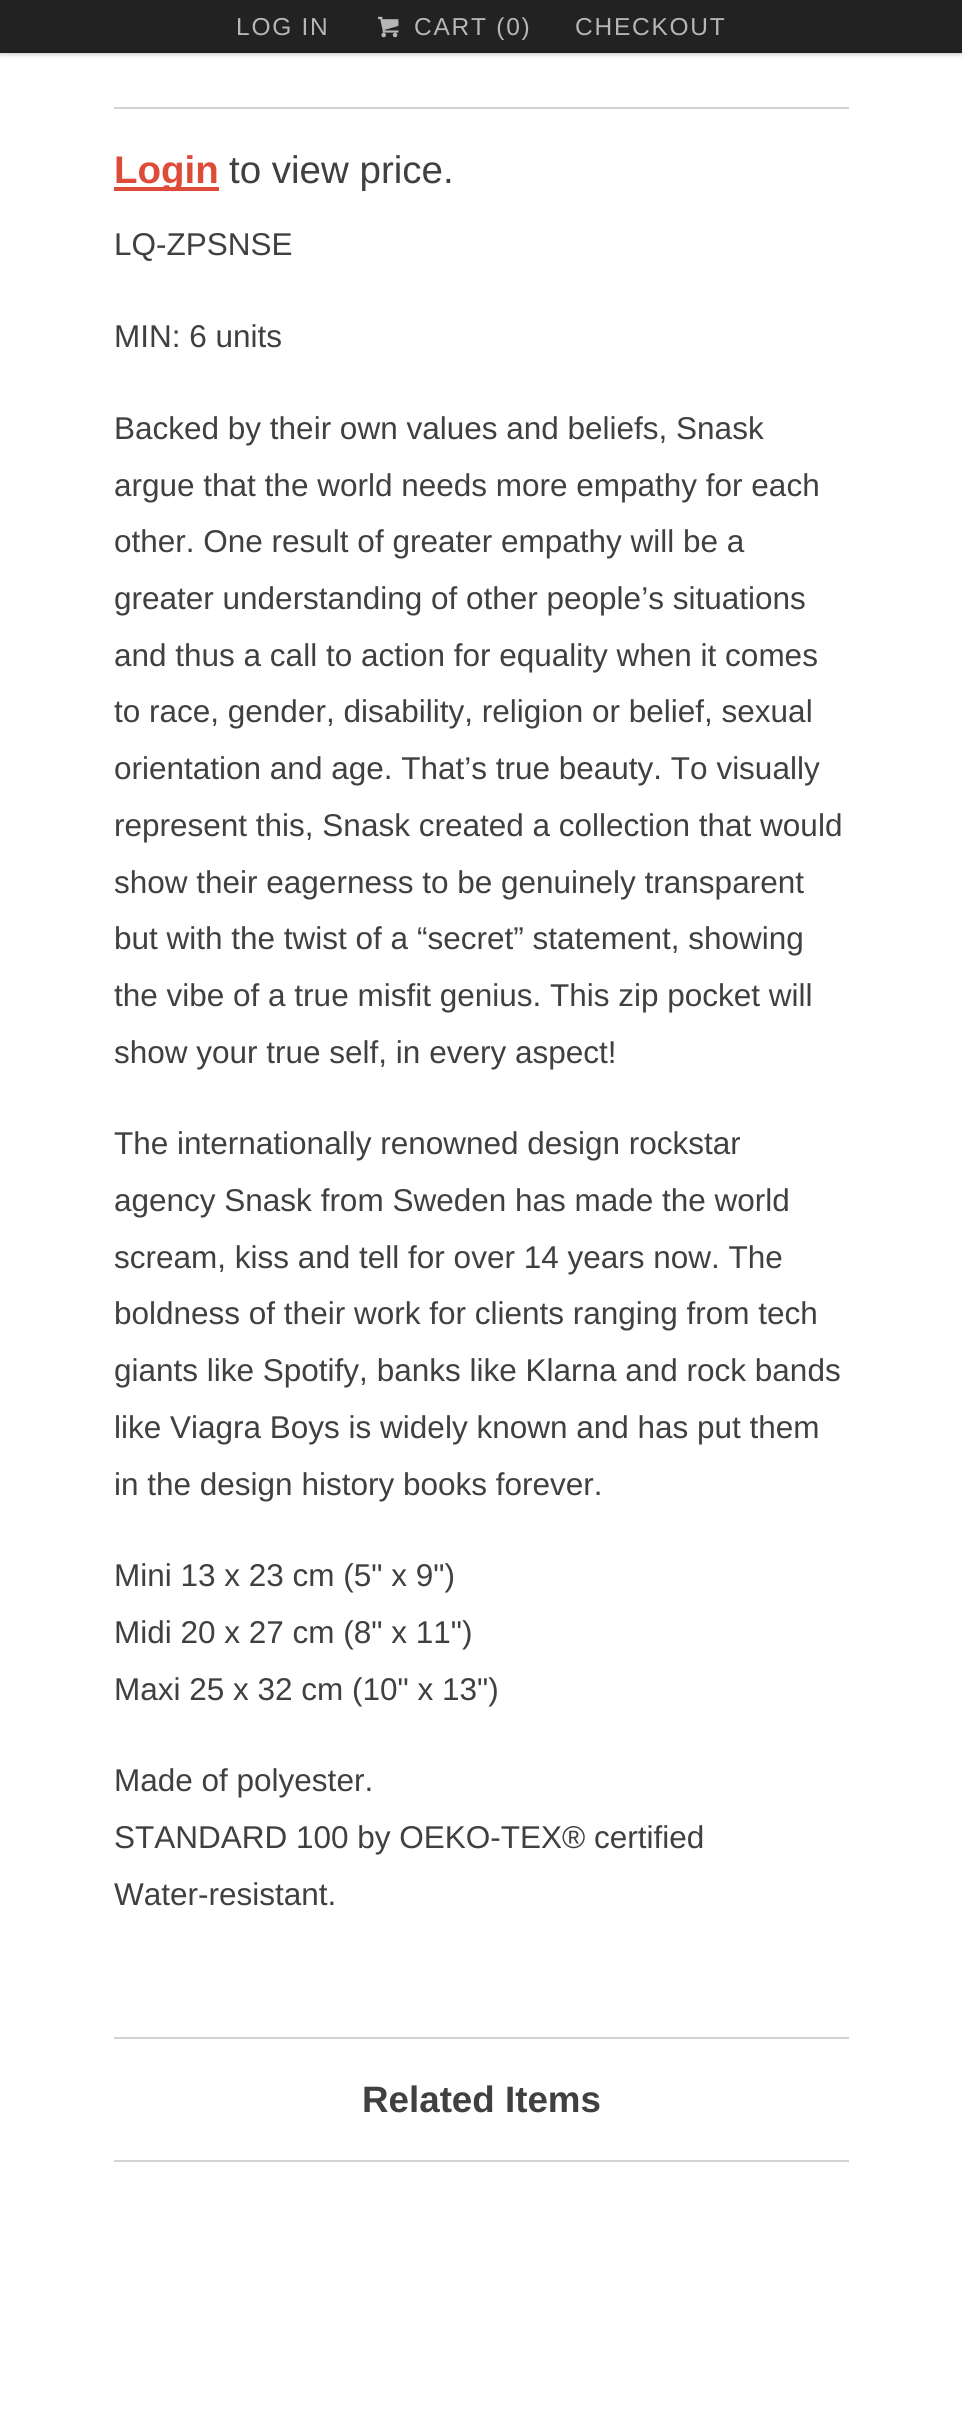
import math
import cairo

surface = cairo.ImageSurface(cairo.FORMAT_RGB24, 962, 2418)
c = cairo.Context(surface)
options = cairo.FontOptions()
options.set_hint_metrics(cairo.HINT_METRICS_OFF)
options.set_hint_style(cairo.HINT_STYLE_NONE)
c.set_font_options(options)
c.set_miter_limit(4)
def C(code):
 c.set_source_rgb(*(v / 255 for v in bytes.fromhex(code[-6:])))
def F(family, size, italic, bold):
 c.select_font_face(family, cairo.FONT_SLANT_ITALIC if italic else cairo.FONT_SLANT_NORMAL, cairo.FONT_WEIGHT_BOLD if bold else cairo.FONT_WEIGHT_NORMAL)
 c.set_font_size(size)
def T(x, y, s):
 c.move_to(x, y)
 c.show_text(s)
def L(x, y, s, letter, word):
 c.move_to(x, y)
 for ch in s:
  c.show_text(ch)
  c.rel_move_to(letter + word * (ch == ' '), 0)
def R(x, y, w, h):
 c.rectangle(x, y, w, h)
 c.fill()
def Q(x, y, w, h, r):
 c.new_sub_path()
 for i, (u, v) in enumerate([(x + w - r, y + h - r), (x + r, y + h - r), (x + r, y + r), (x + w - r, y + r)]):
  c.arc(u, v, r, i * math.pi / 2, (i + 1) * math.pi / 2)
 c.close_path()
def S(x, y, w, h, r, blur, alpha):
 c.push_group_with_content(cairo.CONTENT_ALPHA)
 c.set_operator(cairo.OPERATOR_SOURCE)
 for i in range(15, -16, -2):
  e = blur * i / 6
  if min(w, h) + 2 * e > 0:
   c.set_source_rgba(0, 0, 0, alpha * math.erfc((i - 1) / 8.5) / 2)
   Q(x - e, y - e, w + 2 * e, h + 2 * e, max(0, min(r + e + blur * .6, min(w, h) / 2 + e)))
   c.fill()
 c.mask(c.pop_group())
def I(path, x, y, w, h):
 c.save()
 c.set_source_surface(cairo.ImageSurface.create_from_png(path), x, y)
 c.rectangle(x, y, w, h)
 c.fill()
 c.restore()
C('ffffff')
c.paint()
C('000000')
S(0,2,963,52,0,2.5,.25)
C('222222')
R(0,0,962,51)
C('1f1f1f')
R(0,51,962,2)
F('Liberation Sans',24.5,0,0)
C('b6b6b6')
L(236,35,'LOG IN',1.75,0)
I('1.png',378,16,21,22)
L(414,35,'CART (0)',1.75,0)
L(575,35,'CHECKOUT',1.75,0)
C('d3d3d3')
R(114,107,735,2)
C('dd4b39')
R(114,187,105,4)
F('Liberation Sans',38.5,0,1)
T(114,183,'Login')
F('Liberation Sans',38.5,0,0)
C('404040')
T(229,183,'to view price.')
F('Liberation Sans',31.5,0,0)
T(114,255,'LQ-ZPSNSE')
T(114,347,'MIN: 6 units')
T(114,439,'Backed by their own values and beliefs, Snask')
T(114,496,'argue that the world needs more empathy for each')
T(114,552,'other. One result of greater empathy will be a')
T(114,609,'greater understanding of other people’s situations')
T(114,666,'and thus a call to action for equality when it comes')
T(114,722,'to race, gender, disability, religion or belief, sexual')
T(114,779,'orientation and age. That’s true beauty. To visually')
T(114,836,'represent this, Snask created a collection that would')
T(114,893,'show their eagerness to be genuinely transparent')
T(114,949,'but with the twist of a “secret” statement, showing')
T(114,1006,'the vibe of a true misfit genius. This zip pocket will')
T(114,1063,'show your true self, in every aspect!')
T(114,1154,'The internationally renowned design rockstar')
T(114,1211,'agency Snask from Sweden has made the world')
T(114,1268,'scream, kiss and tell for over 14 years now. The')
T(114,1324,'boldness of their work for clients ranging from tech')
T(114,1381,'giants like Spotify, banks like Klarna and rock bands')
T(114,1438,'like Viagra Boys is widely known and has put them')
T(114,1495,'in the design history books forever.')
T(114,1586,'Mini 13 x 23 cm (5" x 9")')
T(114,1643,'Midi 20 x 27 cm (8" x 11")')
T(114,1700,'Maxi 25 x 32 cm (10" x 13")')
T(114,1791,'Made of polyester.')
T(114,1848,'STANDARD 100 by OEKO-TEX® certified')
T(114,1905,'Water-resistant.')
C('d3d3d3')
R(114,2037,735,2)
R(114,2160,735,2)
F('Liberation Sans',36.75,0,1)
C('404040')
T(362,2112,'Related Items')
surface.write_to_png('o.png')
